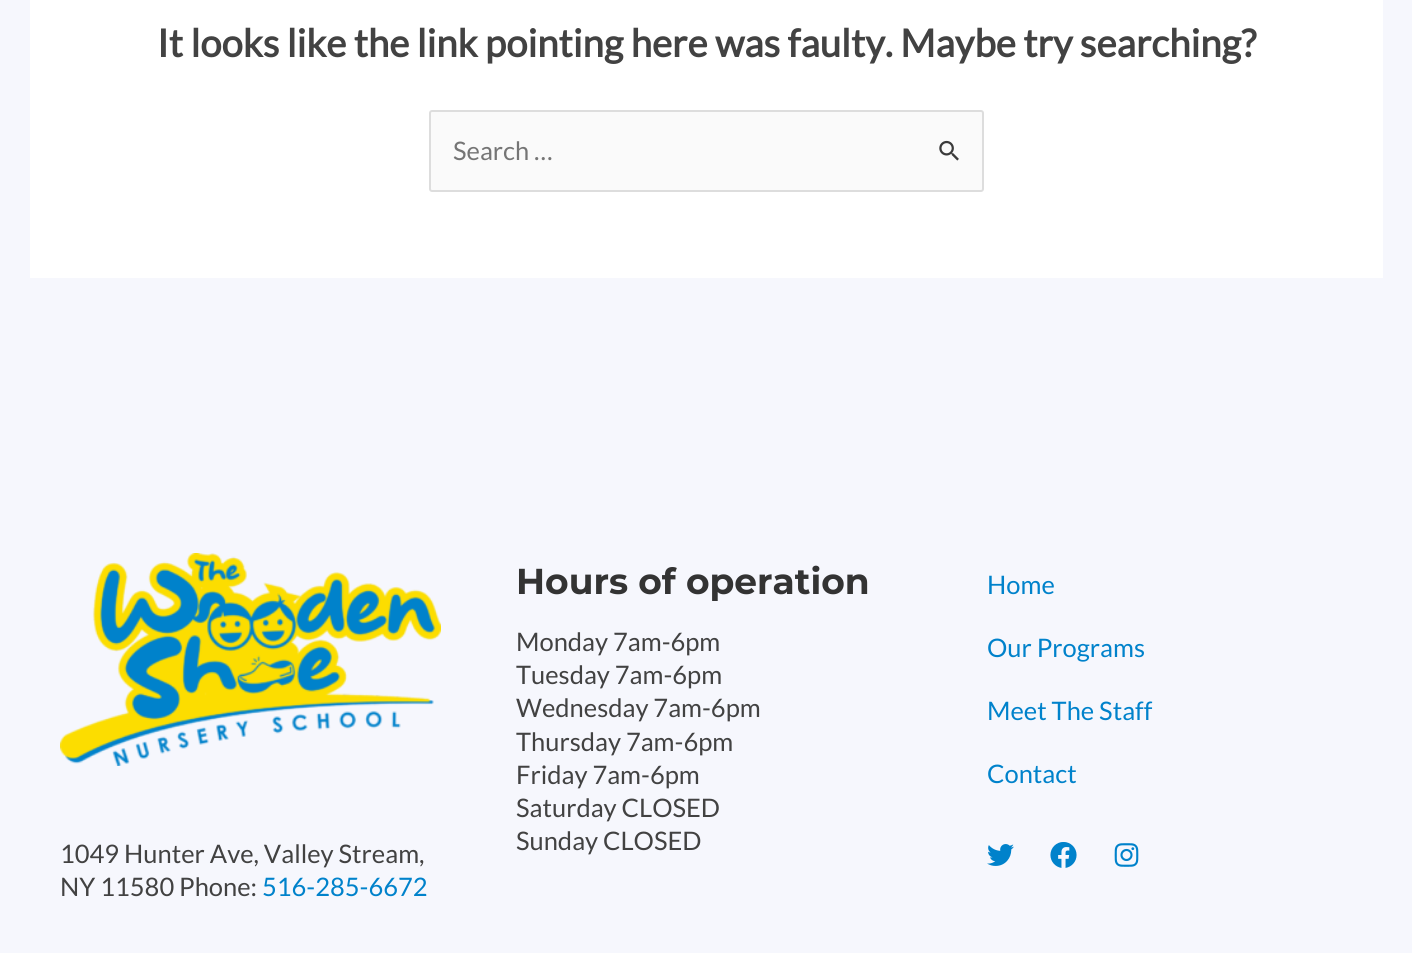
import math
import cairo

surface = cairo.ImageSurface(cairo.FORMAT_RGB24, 1412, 953)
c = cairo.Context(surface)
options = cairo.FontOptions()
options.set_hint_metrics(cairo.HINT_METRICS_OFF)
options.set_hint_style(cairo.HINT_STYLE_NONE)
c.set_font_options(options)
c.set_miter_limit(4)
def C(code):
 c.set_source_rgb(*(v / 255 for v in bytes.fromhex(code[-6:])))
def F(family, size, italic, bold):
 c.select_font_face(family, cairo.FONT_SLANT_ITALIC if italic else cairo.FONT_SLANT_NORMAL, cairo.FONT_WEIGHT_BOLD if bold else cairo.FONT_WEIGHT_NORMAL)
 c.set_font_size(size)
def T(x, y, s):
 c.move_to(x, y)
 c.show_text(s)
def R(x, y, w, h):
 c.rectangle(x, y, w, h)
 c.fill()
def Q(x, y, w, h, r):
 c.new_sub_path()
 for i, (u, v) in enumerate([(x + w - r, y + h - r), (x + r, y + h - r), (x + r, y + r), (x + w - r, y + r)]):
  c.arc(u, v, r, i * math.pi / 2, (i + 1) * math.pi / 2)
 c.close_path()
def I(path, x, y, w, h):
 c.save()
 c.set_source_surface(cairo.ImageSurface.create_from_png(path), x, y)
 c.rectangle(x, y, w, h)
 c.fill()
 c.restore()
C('f6f7fd')
c.paint()
C('ffffff')
R(30,0,1353,278)
F('Lato',38.25,0,1)
C('424242')
T(157,57,'It looks like the link pointing here was faulty. Maybe try searching?')
C('fafafa')
Q(430,111,553,80,2)
c.fill_preserve()
C('dddddd')
c.stroke()
F('Lato',25.5,0,0)
C('757575')
T(453,160,'Search …')
I('1.png',939,140,20,21)
F('Montserrat',36,0,1)
C('333333')
T(516,594,'Hours of operation')
F('Lato',25.5,0,0)
C('424242')
T(516,651,'Monday 7am-6pm')
T(516,684,'Tuesday 7am-6pm')
T(516,717,'Wednesday 7am-6pm')
T(516,751,'Thursday 7am-6pm')
T(516,784,'Friday 7am-6pm')
T(516,817,'Saturday CLOSED')
T(516,850,'Sunday CLOSED')
C('0082cb')
T(987,594,'Home')
T(987,657,'Our Programs')
T(987,720,'Meet The Staff')
T(987,783,'Contact')
I('2.png',987,844,27,22)
I('3.png',1050,842,27,26)
I('4.png',1114,843,25,24)
I('5.png',60,553,381,213)
C('424242')
T(60,863,'1049 Hunter Ave, Valley Stream,')
T(60,896,'NY 11580 Phone:')
C('0082cb')
T(262,896,'516-285-6672')
surface.write_to_png('o.png')
